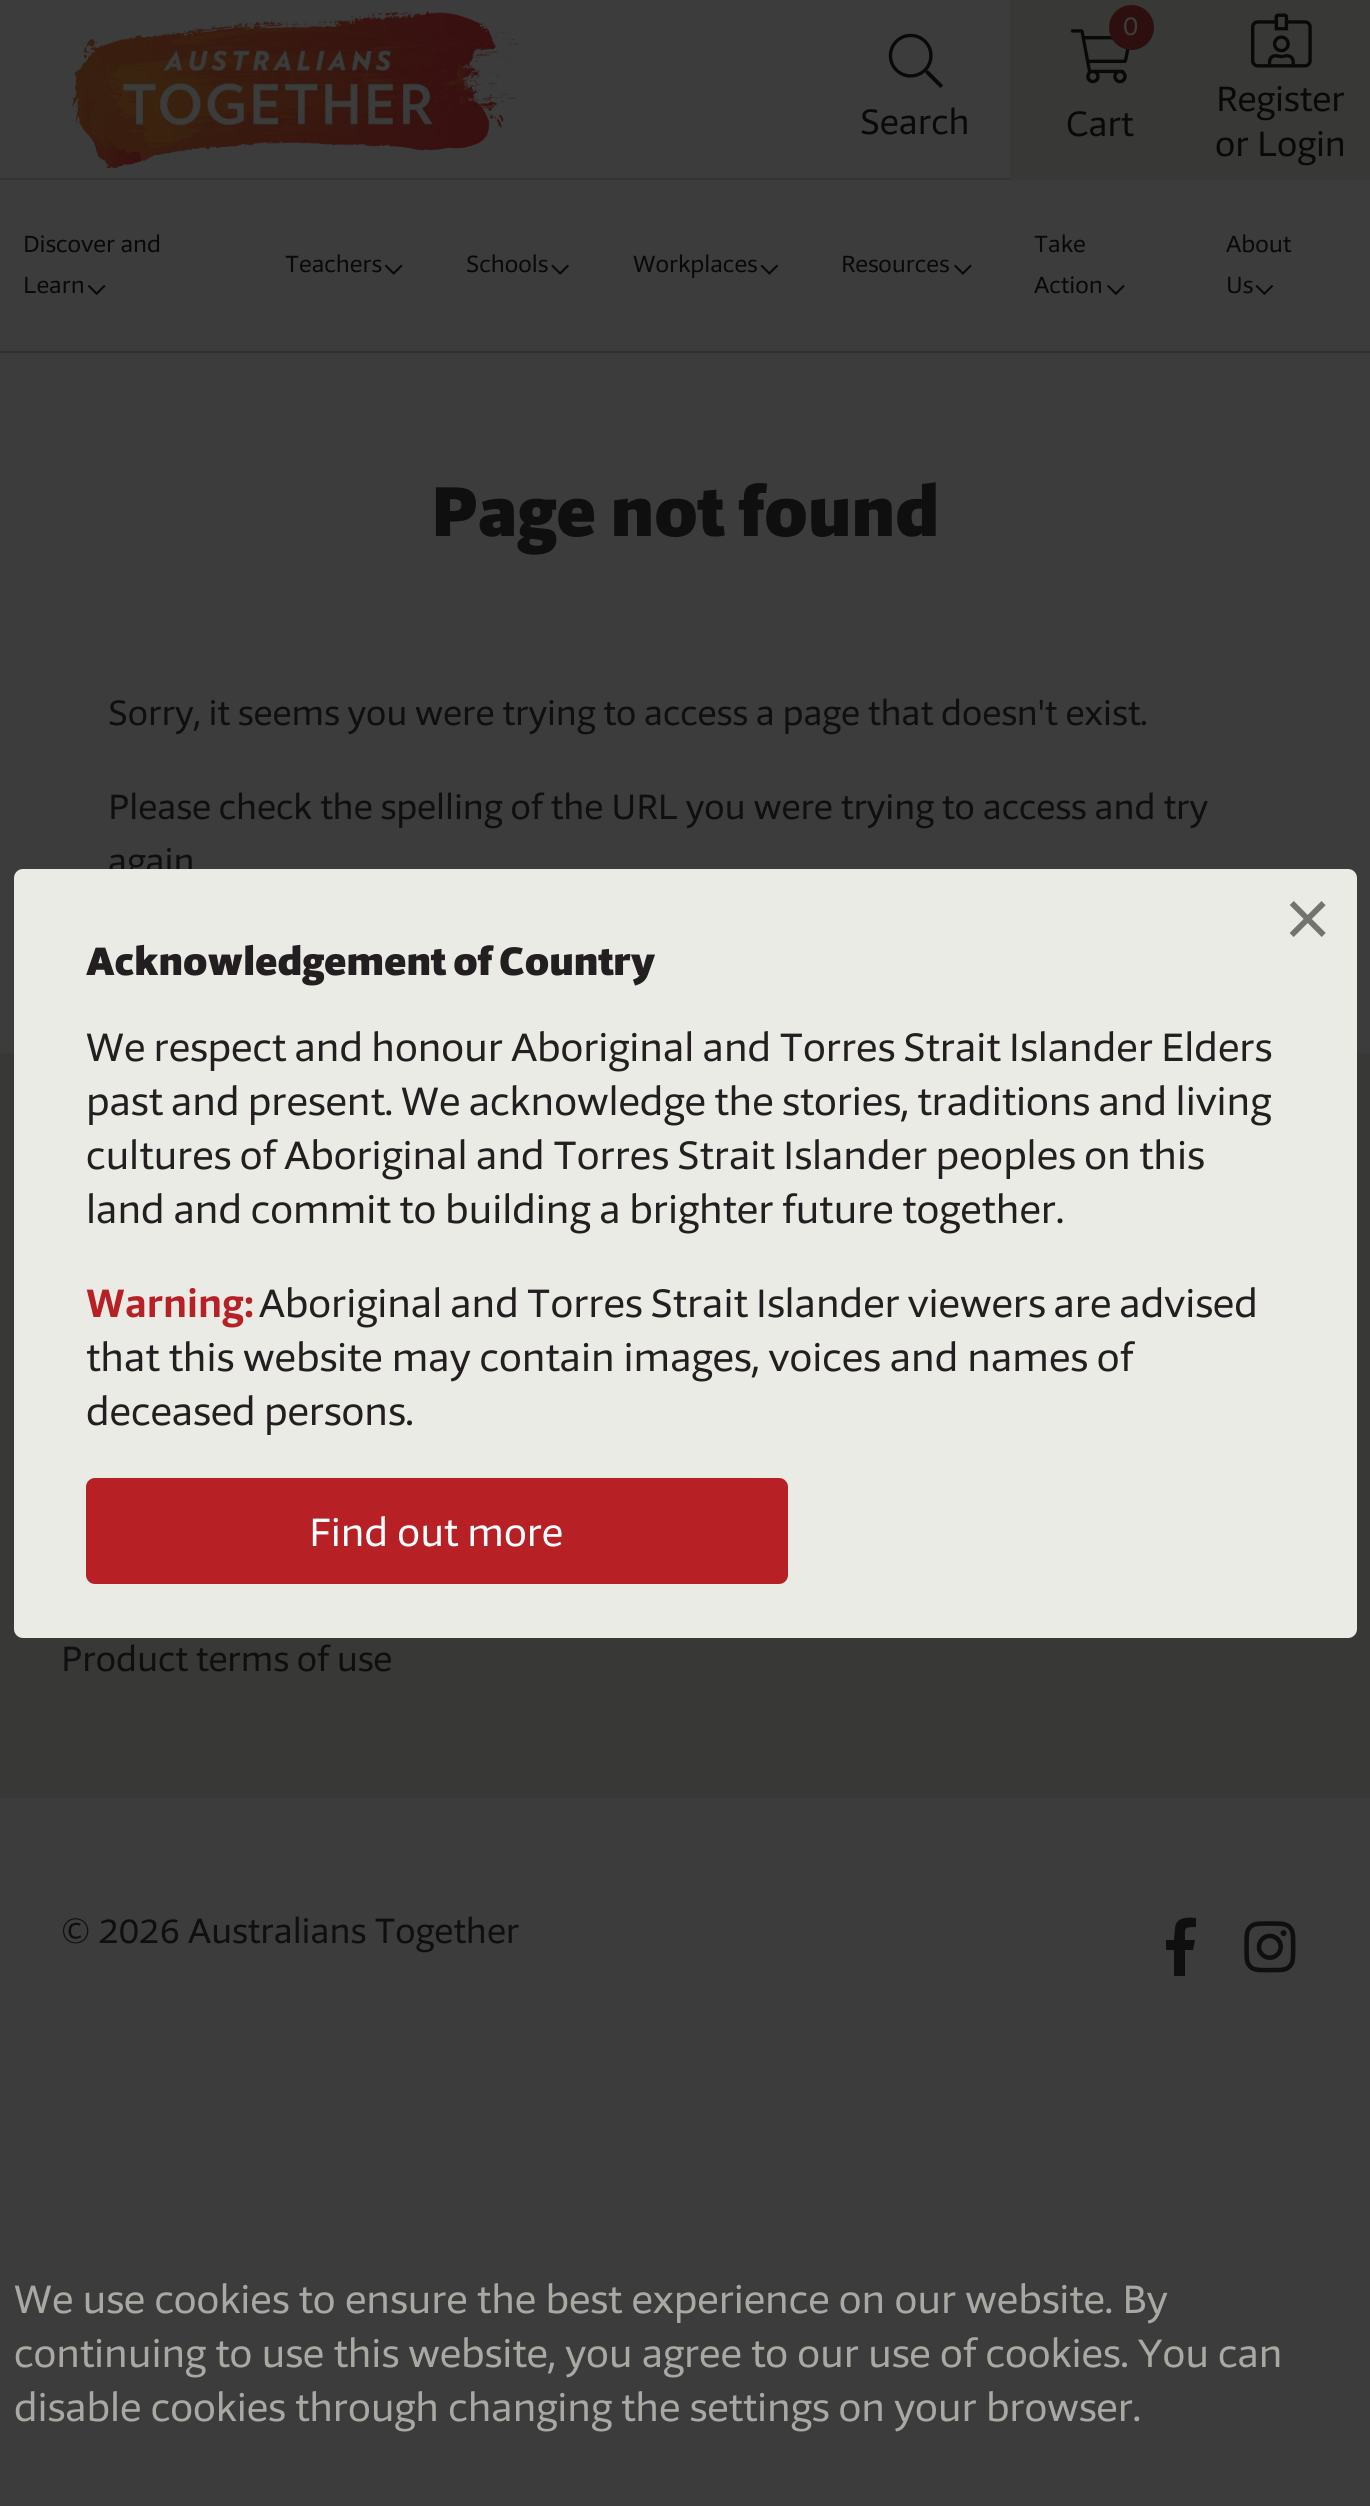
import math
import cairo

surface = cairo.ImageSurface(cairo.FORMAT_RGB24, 1370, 2506)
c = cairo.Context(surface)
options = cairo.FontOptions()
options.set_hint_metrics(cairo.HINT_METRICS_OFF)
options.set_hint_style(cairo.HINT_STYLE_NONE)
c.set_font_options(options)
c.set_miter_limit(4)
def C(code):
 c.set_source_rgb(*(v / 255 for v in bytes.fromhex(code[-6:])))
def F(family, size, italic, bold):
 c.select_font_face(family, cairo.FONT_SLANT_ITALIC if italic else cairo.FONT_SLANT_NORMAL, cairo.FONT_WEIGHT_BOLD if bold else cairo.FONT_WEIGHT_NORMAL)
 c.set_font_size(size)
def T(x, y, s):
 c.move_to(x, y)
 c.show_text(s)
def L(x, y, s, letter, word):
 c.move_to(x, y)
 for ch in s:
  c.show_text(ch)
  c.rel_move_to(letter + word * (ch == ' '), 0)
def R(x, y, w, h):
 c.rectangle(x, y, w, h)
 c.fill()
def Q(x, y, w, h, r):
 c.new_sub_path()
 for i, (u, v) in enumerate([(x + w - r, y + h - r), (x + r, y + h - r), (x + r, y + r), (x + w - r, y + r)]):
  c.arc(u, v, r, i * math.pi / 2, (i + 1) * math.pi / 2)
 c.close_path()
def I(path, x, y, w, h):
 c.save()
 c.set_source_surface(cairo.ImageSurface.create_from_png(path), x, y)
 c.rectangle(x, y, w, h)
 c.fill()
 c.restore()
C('3c3c3c')
c.paint()
C('2f2f2f')
R(0,351,1370,2)
I('1.png',72,11,447,158)
I('2.png',888,33,55,55)
F('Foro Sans',36,0,0)
C('090909')
T(860,134,'Search')
C('383837')
R(1010,0,360,180)
I('3.png',1071,29,59,55)
C('2d0f10')
c.arc(1131.5,27.5,22.5,0,2 * math.pi)
c.fill()
F('Foro Sans',27,0,0)
C('3c3c3c')
T(1123,35,'0')
F('Foro Sans',36,0,0)
C('090909')
T(1066,136,'Cart')
I('4.png',1251,13,61,55)
T(1216,111,'Register')
T(1215,156,'or Login')
C('333331')
R(0,178,1010,2)
F('Foro Sans',24,0,0)
C('090909')
T(23,252,'Discover and')
T(23,293,'Learn')
I('5.png',87,285,19,10)
T(285,272,'Teachers')
I('6.png',384,264,19,11)
T(466,272,'Schools')
I('7.png',551,264,18,11)
T(633,272,'Workplaces')
I('8.png',760,264,18,11)
T(841,272,'Resources')
I('9.png',954,264,18,11)
T(1034,252,'Take')
T(1034,293,'Action')
I('10.png',1107,285,18,10)
T(1226,252,'About')
T(1226,293,'Us')
I('11.png',1255,285,19,10)
F('Foro Sans Black',72,0,0)
C('100f0f')
L(432,536,'Page not found',0,-2)
F('Foro Sans',36,0,0)
L(108,725,'Sorry, it seems you were trying to access a page that doesn\'t exist.',0,-.4)
L(108,819,'Please check the spelling of the URL you were trying to access and try',0,-.3)
T(108,873,'again')
C('383837')
R(0,1053,1370,745)
C('100f0f')
L(61,1671,'Product terms of use',0,-.5)
T(61,1943,'© 2026 Australians Together')
c.new_path()
c.move_to(1174,1976)
c.line_to(1174,1950)
c.line_to(1166,1950)
c.line_to(1166,1940)
c.line_to(1174,1940)
c.line_to(1175,1928)
c.curve_to(1176,1917,1187,1917,1196,1918)
c.line_to(1196,1927)
c.curve_to(1183,1927,1185,1928,1185,1940)
c.line_to(1195,1940)
c.line_to(1193,1950)
c.line_to(1185,1950)
c.line_to(1185,1976)
c.close_path()
c.fill()
I('12.png',1244,1921,52,52)
C('ebebe5')
Q(14,869,1343,769,9)
c.fill()
F('Liberation Sans',81,0,0)
C('737371')
T(1284,946,'×')
F('Foro Sans Black',40.5,0,0)
C('231f20')
L(86,975,'Acknowledgement of Country',0,-2)
F('Foro Sans',40.5,0,0)
L(86,1061,'We respect and honour Aboriginal and Torres Strait Islander Elders',0,-1)
L(86,1115,'past and present.',0,-1)
L(401,1115,'We acknowledge the stories, traditions and living',0,-.75)
L(86,1169,'cultures of Aboriginal and Torres Strait Islander peoples on this',0,-.75)
L(86,1223,'land and commit to building a brighter future together.',0,-.5)
F('Foro Sans',40.5,0,1)
C('b72126')
T(86,1317,'Warning:')
F('Foro Sans',40.5,0,0)
C('231f20')
L(259,1317,'Aboriginal and Torres Strait Islander viewers are advised',0,-1.25)
L(86,1371,'that this website may contain images, voices and names of',0,-.25)
L(86,1425,'deceased persons.',0,-1)
C('b72126')
Q(86,1478,702,106,9)
c.fill()
C('ffffff')
T(309,1546,'Find out more')
C('a9a8a3')
T(14,2313,'We use cookies to ensure the best experience on our website. By')
T(14,2367,'continuing to use this website, you agree to our use of cookies. You can')
T(14,2421,'disable cookies through changing the settings on your browser.')
surface.write_to_png('o.png')
